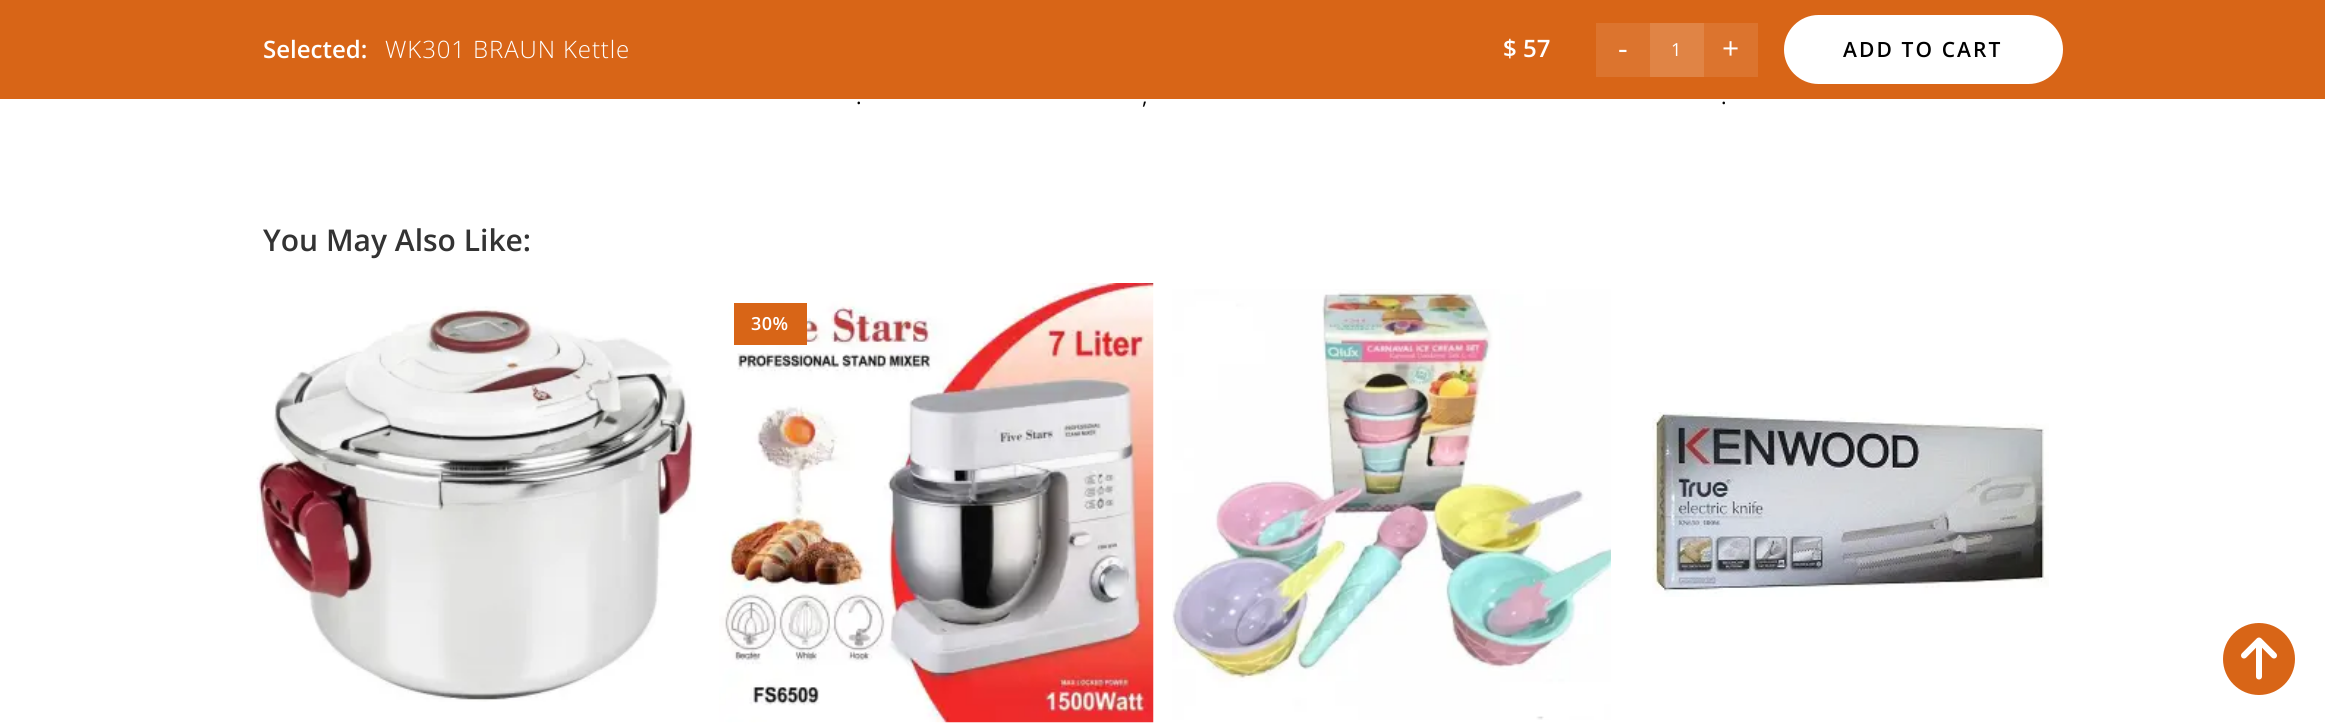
import math
import cairo

surface = cairo.ImageSurface(cairo.FORMAT_RGB24, 2325, 725)
c = cairo.Context(surface)
options = cairo.FontOptions()
options.set_hint_metrics(cairo.HINT_METRICS_OFF)
options.set_hint_style(cairo.HINT_STYLE_NONE)
c.set_font_options(options)
c.set_miter_limit(4)
def C(code):
 c.set_source_rgb(*(v / 255 for v in bytes.fromhex(code[-6:])))
def F(family, size, italic, bold):
 c.select_font_face(family, cairo.FONT_SLANT_ITALIC if italic else cairo.FONT_SLANT_NORMAL, cairo.FONT_WEIGHT_BOLD if bold else cairo.FONT_WEIGHT_NORMAL)
 c.set_font_size(size)
def T(x, y, s):
 c.move_to(x, y)
 c.show_text(s)
def L(x, y, s, letter, word):
 c.move_to(x, y)
 for ch in s:
  c.show_text(ch)
  c.rel_move_to(letter + word * (ch == ' '), 0)
def R(x, y, w, h):
 c.rectangle(x, y, w, h)
 c.fill()
def Q(x, y, w, h, r):
 c.new_sub_path()
 for i, (u, v) in enumerate([(x + w - r, y + h - r), (x + r, y + h - r), (x + r, y + r), (x + w - r, y + r)]):
  c.arc(u, v, r, i * math.pi / 2, (i + 1) * math.pi / 2)
 c.close_path()
def I(path, x, y, w, h):
 c.save()
 c.set_source_surface(cairo.ImageSurface.create_from_png(path), x, y)
 c.rectangle(x, y, w, h)
 c.fill()
 c.restore()
C('ffffff')
c.paint()
C('d86517')
R(0,0,2325,99)
F('Open Sans SemiBold',24,0,0)
C('ffffff')
T(263,58,'Selected:')
F('Open Sans Light',24,0,0)
L(385,58,'WK301 BRAUN Kettle',.9,0)
F('Open Sans SemiBold',24,0,0)
T(1503,57,'$ 57')
C('dc742e')
R(1596,23,54,54)
F('Open Sans',30,0,0)
C('ffffff')
T(1618,59,'-')
C('e08445')
R(1650,23,54,54)
F('Open Sans',18,0,0)
C('ffffff')
T(1671,56,'1')
C('dc742e')
R(1704,23,54,54)
F('Open Sans',30,0,0)
C('ffffff')
T(1722,59,'+')
Q(1784,15,279,69,34.5)
c.fill()
F('Open Sans SemiBold',21,0,0)
C('000000')
L(1843,57,'ADD TO CART',2.1,0)
F('Open Sans',21,0,0)
T(856,104,'.')
T(1142,104,',')
T(1721,104,'.')
F('Open Sans SemiBold',30,0,0)
C('333333')
T(263,251,'You May Also Like:')
I('1.png',256,306,440,396)
I('2.png',719,283,435,440)
C('d86517')
R(734,303,73,42)
F('Open Sans SemiBold',18,0,0)
C('ffffff')
L(751,330,'30%',.5,0)
I('3.png',1172,289,439,431)
I('4.png',1652,412,397,185)
C('d86517')
c.arc(2259,659,36,0,2 * math.pi)
c.fill()
I('5.png',2241,637,36,43)
surface.write_to_png('o.png')
